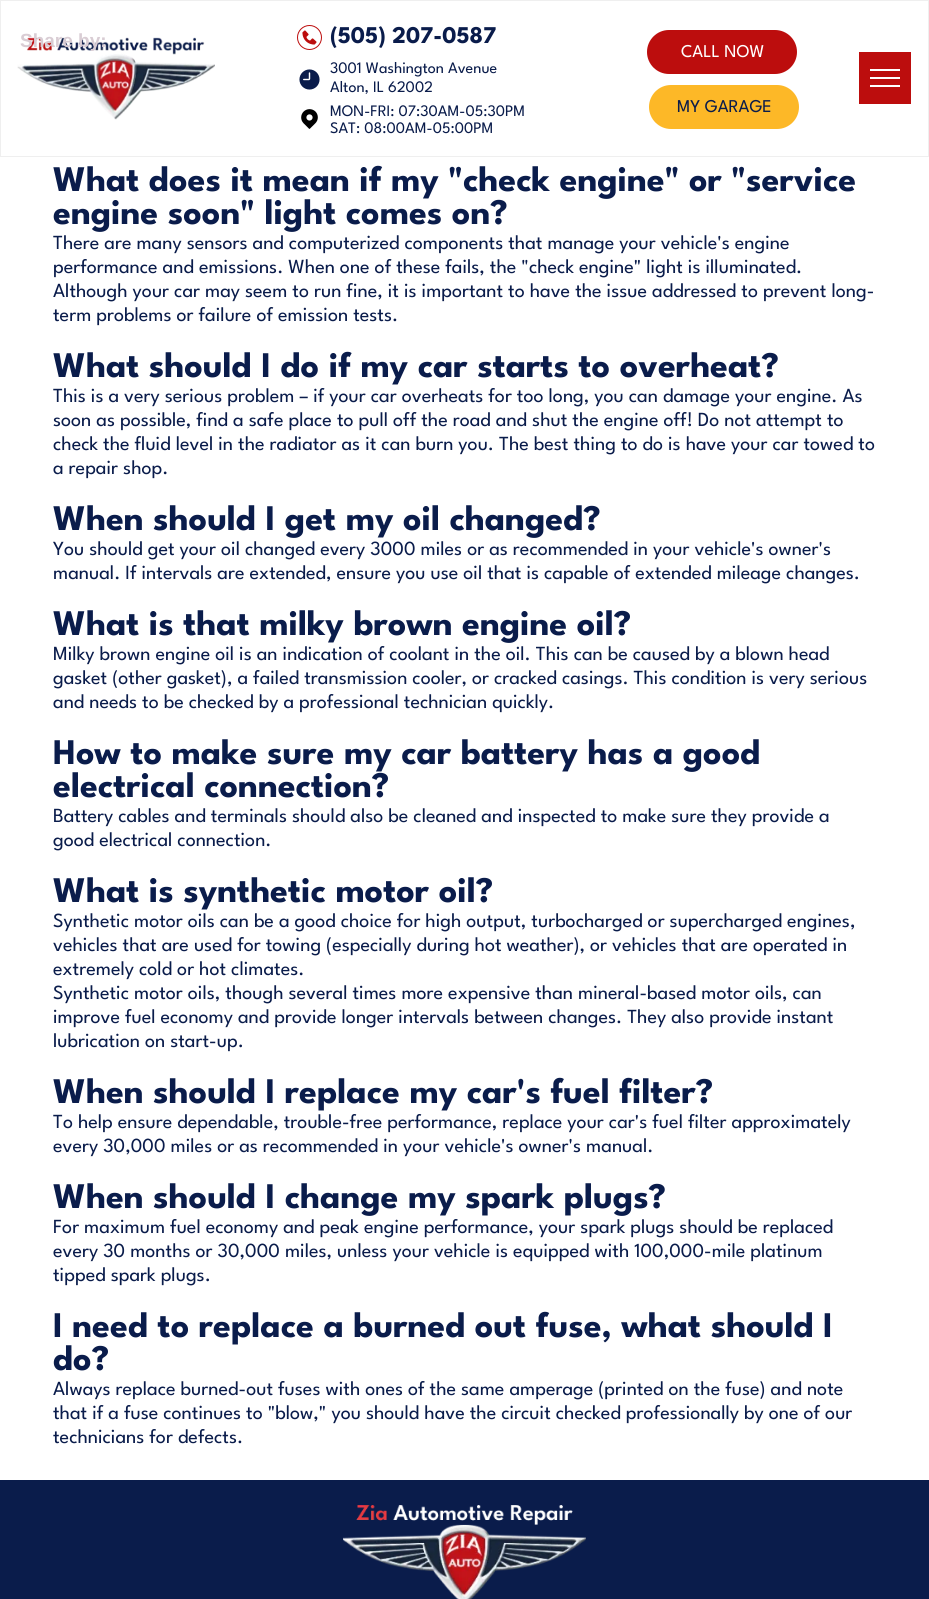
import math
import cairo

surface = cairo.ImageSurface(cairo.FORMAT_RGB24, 929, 1599)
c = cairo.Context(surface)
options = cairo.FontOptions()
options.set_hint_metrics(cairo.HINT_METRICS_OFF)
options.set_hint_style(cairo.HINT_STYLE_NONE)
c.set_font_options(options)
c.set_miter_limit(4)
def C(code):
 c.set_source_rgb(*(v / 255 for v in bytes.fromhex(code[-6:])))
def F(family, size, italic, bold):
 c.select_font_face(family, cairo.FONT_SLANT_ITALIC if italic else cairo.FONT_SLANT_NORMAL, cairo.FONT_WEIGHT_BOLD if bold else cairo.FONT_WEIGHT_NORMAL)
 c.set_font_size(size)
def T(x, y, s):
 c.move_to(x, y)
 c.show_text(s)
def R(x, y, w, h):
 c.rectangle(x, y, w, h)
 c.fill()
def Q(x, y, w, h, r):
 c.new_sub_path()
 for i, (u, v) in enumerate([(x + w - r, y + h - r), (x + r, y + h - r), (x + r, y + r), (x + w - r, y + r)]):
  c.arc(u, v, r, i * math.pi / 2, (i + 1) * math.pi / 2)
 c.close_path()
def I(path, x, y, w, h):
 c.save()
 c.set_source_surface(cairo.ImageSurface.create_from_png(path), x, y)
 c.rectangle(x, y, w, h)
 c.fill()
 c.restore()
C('ffffff')
c.paint()
c.rectangle(.5,.5,928,156)
C('efefef')
c.set_line_width(1)
c.stroke()
I('1.png',17,37,198,83)
I('2.png',297,25,25,25)
F('League Spartan',24,0,1)
C('0a1c4b')
T(330,43,'(505) 207-0587')
I('3.png',299,69,21,21)
F('League Spartan',16,0,0)
T(330,73,'3001 Washington Avenue')
T(330,92,'Alton, IL 62002')
I('4.png',301,109,17,20)
T(330,116,'MON-FRI: 07:30AM-05:30PM')
T(330,133,'SAT: 08:00AM-05:00PM')
C('bc0d0d')
Q(647,30,150,44,22)
c.fill()
F('League Spartan',18,0,0)
C('ffffff')
T(681,57,'CALL NOW')
C('fdb827')
Q(649,85,150,44,22)
c.fill()
C('0a1c4b')
T(677,112,'MY GARAGE')
C('bc0d0d')
R(859,52,52,52)
C('ffffff')
R(870,69,30,2)
R(870,77,30,2)
R(870,85,30,2)
F('League Spartan',36,0,1)
C('0a1c4b')
T(53,191,'What does it mean if my "check engine" or "service')
T(53,224,'engine soon" light comes on?')
F('League Spartan',20,0,0)
T(53,249,'There are many sensors and computerized components that manage your vehicle\'s engine')
T(53,273,'performance and emissions. When one of these fails, the "check engine" light is illuminated.')
T(53,297,'Although your car may seem to run fine, it is important to have the issue addressed to prevent long-')
T(53,321,'term problems or failure of emission tests.')
F('League Spartan',36,0,1)
T(53,377,'What should I do if my car starts to overheat?')
F('League Spartan',20,0,0)
T(53,402,'This is a very serious problem – if your car overheats for too long, you can damage your engine. As')
T(53,426,'soon as possible, find a safe place to pull off the road and shut the engine off! Do not attempt to')
T(53,450,'check the fluid level in the radiator as it can burn you. The best thing to do is have your car towed to')
T(53,474,'a repair shop.')
F('League Spartan',36,0,1)
T(53,530,'When should I get my oil changed?')
F('League Spartan',20,0,0)
T(53,555,'You should get your oil changed every 3000 miles or as recommended in your vehicle\'s owner\'s')
T(53,579,'manual. If intervals are extended, ensure you use oil that is capable of extended mileage changes.')
F('League Spartan',36,0,1)
T(53,635,'What is that milky brown engine oil?')
F('League Spartan',20,0,0)
T(53,660,'Milky brown engine oil is an indication of coolant in the oil. This can be caused by a blown head')
T(53,684,'gasket (other gasket), a failed transmission cooler, or cracked casings. This condition is very serious')
T(53,708,'and needs to be checked by a professional technician quickly.')
F('League Spartan',36,0,1)
T(53,764,'How to make sure my car battery has a good')
T(53,797,'electrical connection?')
F('League Spartan',20,0,0)
T(53,822,'Battery cables and terminals should also be cleaned and inspected to make sure they provide a')
T(53,846,'good electrical connection.')
F('League Spartan',36,0,1)
T(53,902,'What is synthetic motor oil?')
F('League Spartan',20,0,0)
T(53,927,'Synthetic motor oils can be a good choice for high output, turbocharged or supercharged engines,')
T(53,951,'vehicles that are used for towing (especially during hot weather), or vehicles that are operated in')
T(53,975,'extremely cold or hot climates.')
T(53,999,'Synthetic motor oils, though several times more expensive than mineral-based motor oils, can')
T(53,1023,'improve fuel economy and provide longer intervals between changes. They also provide instant')
T(53,1047,'lubrication on start-up.')
F('League Spartan',36,0,1)
T(53,1103,'When should I replace my car\'s fuel filter?')
F('League Spartan',20,0,0)
T(53,1128,'To help ensure dependable, trouble-free performance, replace your car\'s fuel filter approximately')
T(53,1152,'every 30,000 miles or as recommended in your vehicle\'s owner\'s manual.')
F('League Spartan',36,0,1)
T(53,1208,'When should I change my spark plugs?')
F('League Spartan',20,0,0)
T(53,1233,'For maximum fuel economy and peak engine performance, your spark plugs should be replaced')
T(53,1257,'every 30 months or 30,000 miles, unless your vehicle is equipped with 100,000-mile platinum')
T(53,1281,'tipped spark plugs.')
F('League Spartan',36,0,1)
T(53,1337,'I need to replace a burned out fuse, what should I')
T(53,1370,'do?')
F('League Spartan',20,0,0)
T(53,1395,'Always replace burned-out fuses with ones of the same amperage (printed on the fuse) and note')
T(53,1419,'that if a fuse continues to "blow," you should have the circuit checked professionally by one of our')
T(53,1443,'technicians for defects.')
R(0,1480,929,119)
I('5.png',343,1505,243,94)
F('Liberation Sans',19,0,1)
C('d9cdd4')
T(20,47,'Share by:')
surface.write_to_png('o.png')
